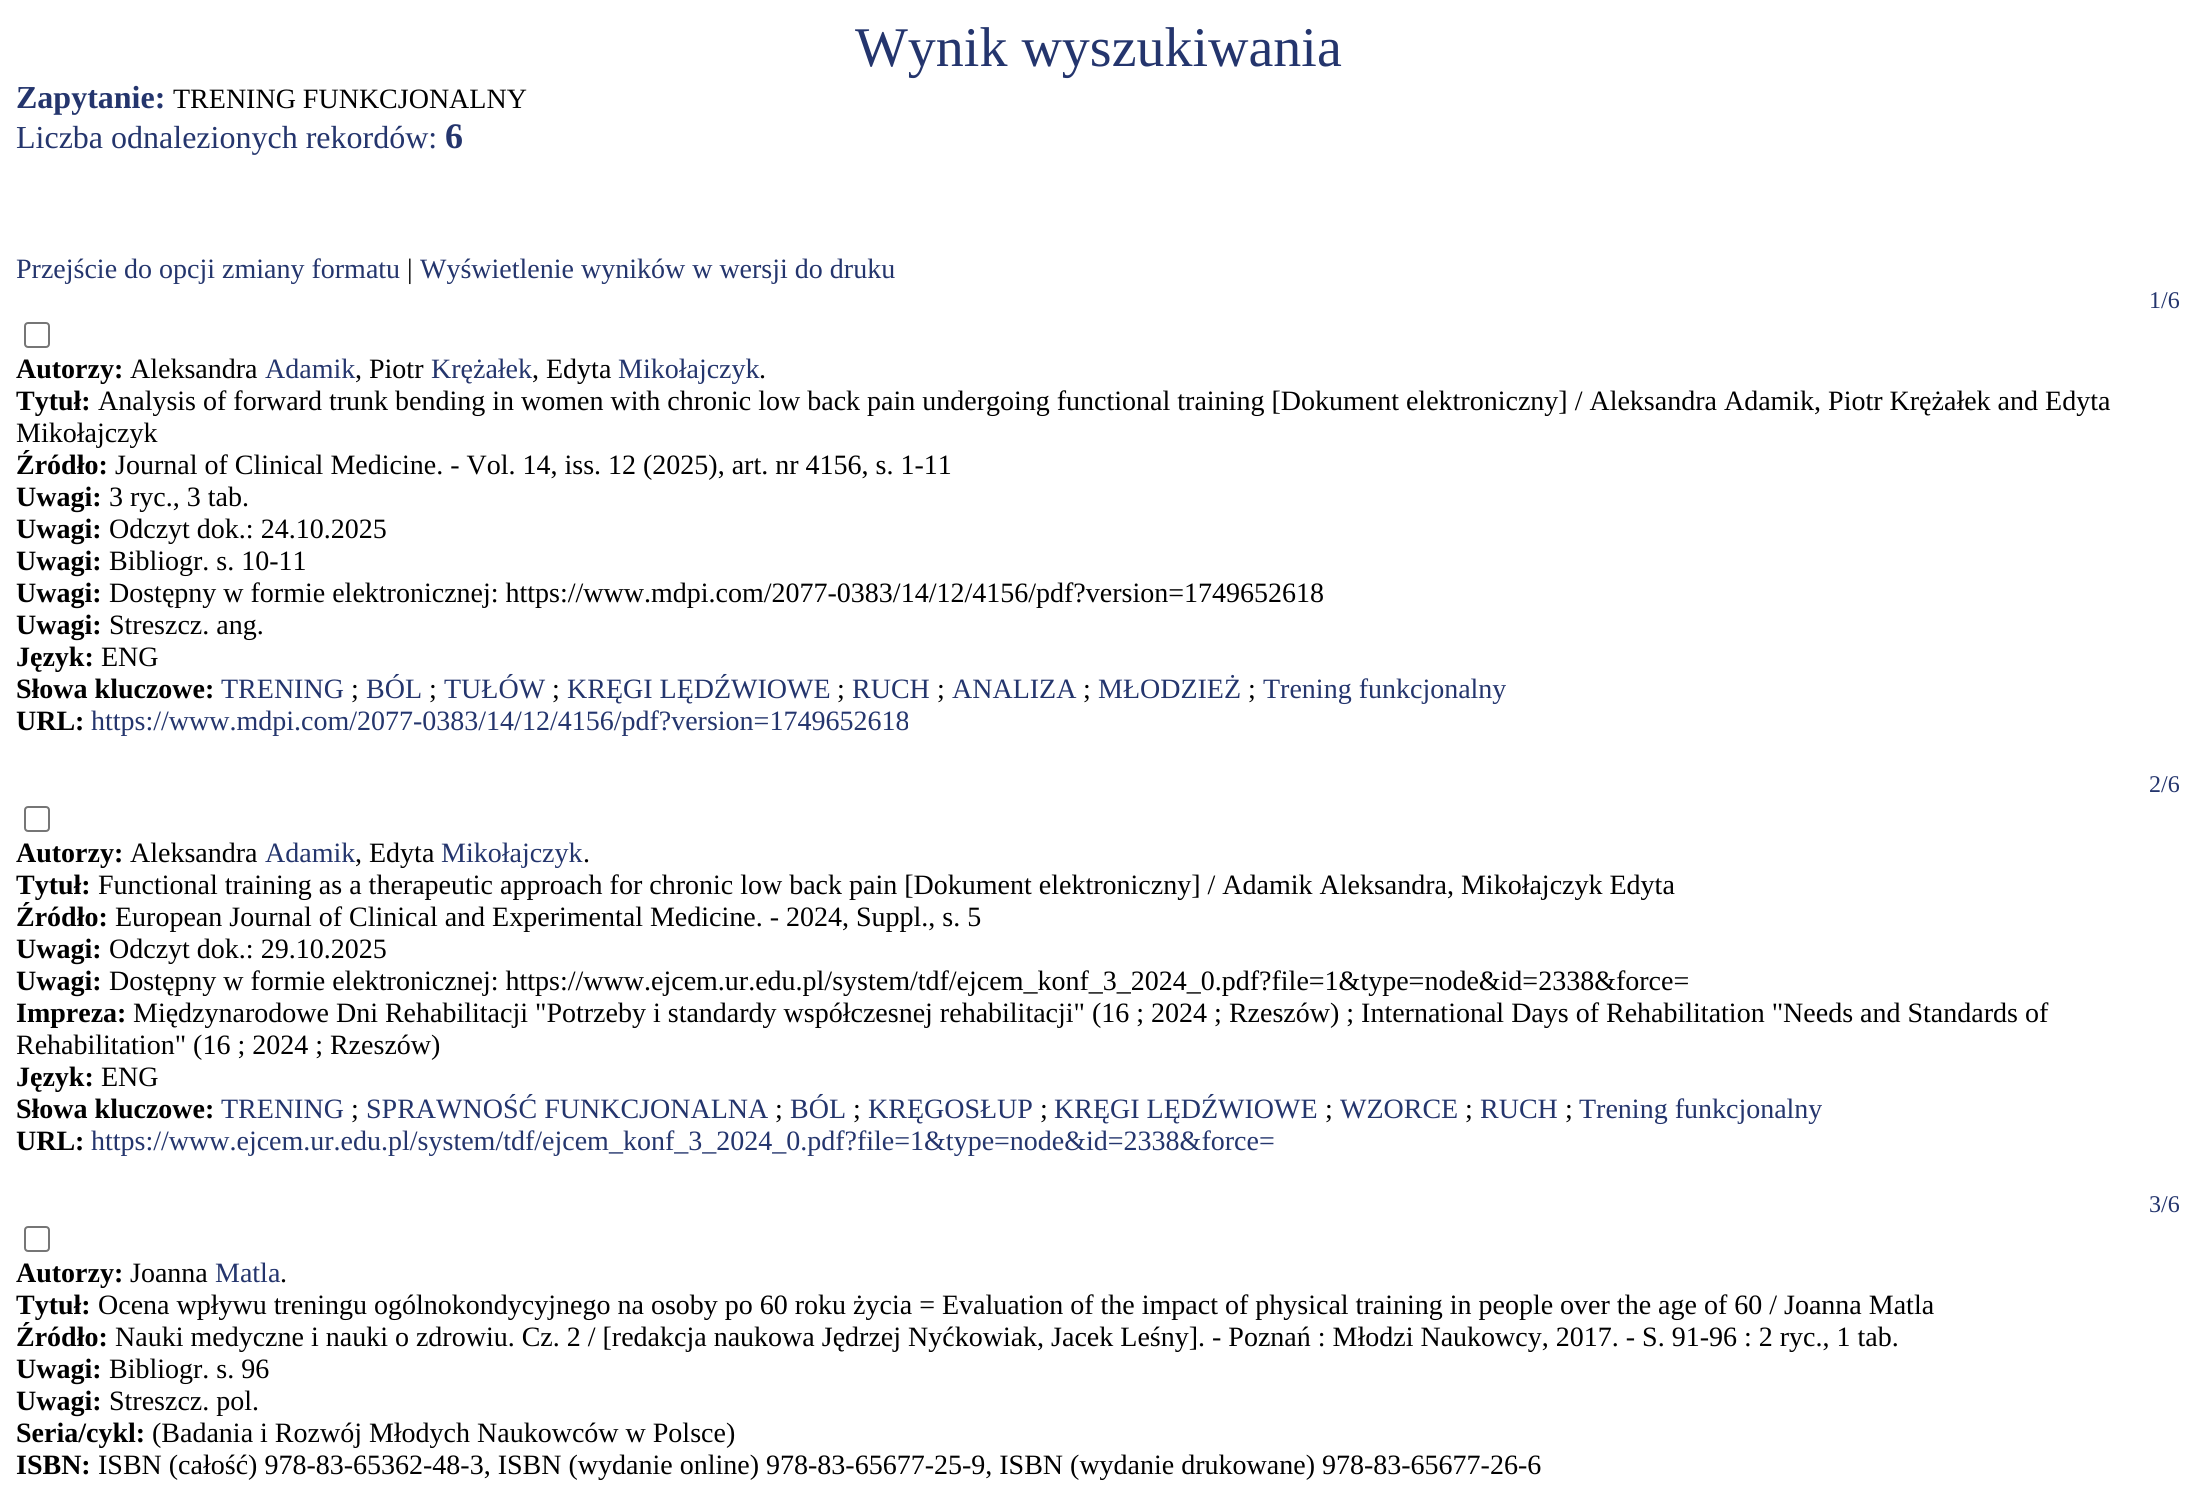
import math
import cairo

surface = cairo.ImageSurface(cairo.FORMAT_RGB24, 2195, 1492)
c = cairo.Context(surface)
options = cairo.FontOptions()
options.set_hint_metrics(cairo.HINT_METRICS_OFF)
options.set_hint_style(cairo.HINT_STYLE_NONE)
c.set_font_options(options)
c.set_miter_limit(4)
def C(code):
 c.set_source_rgb(*(v / 255 for v in bytes.fromhex(code[-6:])))
def F(family, size, italic, bold):
 c.select_font_face(family, cairo.FONT_SLANT_ITALIC if italic else cairo.FONT_SLANT_NORMAL, cairo.FONT_WEIGHT_BOLD if bold else cairo.FONT_WEIGHT_NORMAL)
 c.set_font_size(size)
def T(x, y, s):
 c.move_to(x, y)
 c.show_text(s)
def Q(x, y, w, h, r):
 c.new_sub_path()
 for i, (u, v) in enumerate([(x + w - r, y + h - r), (x + r, y + h - r), (x + r, y + r), (x + w - r, y + r)]):
  c.arc(u, v, r, i * math.pi / 2, (i + 1) * math.pi / 2)
 c.close_path()
C('ffffff')
c.paint()
F('Liberation Serif',56,0,0)
C('24356d')
T(855,66,'Wynik wyszukiwania')
F('Liberation Serif',32,0,1)
T(16,108,'Zapytanie:')
F('Liberation Serif',28,0,0)
C('000000')
T(173,108,'TRENING FUNKCJONALNY')
F('Liberation Serif',32,0,0)
C('24356d')
T(16,148,'Liczba odnalezionych rekordów:')
F('Liberation Serif',36,0,1)
T(445,148,'6')
F('Liberation Serif',28,0,0)
T(16,278,'Przejście do opcji zmiany formatu')
C('000000')
T(407,278,'|')
C('24356d')
T(420,278,'Wyświetlenie wyników w wersji do druku')
F('Liberation Serif',24,0,0)
T(2149,308,'1/6')
Q(25,323,24,24,3)
C('767676')
c.stroke()
F('Liberation Serif',28,0,1)
C('000000')
T(16,378,'Autorzy:')
F('Liberation Serif',28,0,0)
T(130,378,'Aleksandra')
C('24356d')
T(265,378,'Adamik')
C('000000')
T(355,378,', Piotr')
C('24356d')
T(431,378,'Krężałek')
C('000000')
T(532,378,', Edyta')
C('24356d')
T(618,378,'Mikołajczyk')
C('000000')
T(759,378,'.')
F('Liberation Serif',28,0,1)
T(16,410,'Tytuł:')
F('Liberation Serif',28,0,0)
T(98,410,'Analysis of forward trunk bending in women with chronic low back pain undergoing functional training [Dokument elektroniczny] / Aleksandra Adamik, Piotr Krężałek and Edyta')
T(16,442,'Mikołajczyk')
F('Liberation Serif',28,0,1)
T(16,474,'Źródło:')
F('Liberation Serif',28,0,0)
T(115,474,'Journal of Clinical Medicine. - Vol. 14, iss. 12 (2025), art. nr 4156, s. 1-11')
F('Liberation Serif',28,0,1)
T(16,506,'Uwagi:')
F('Liberation Serif',28,0,0)
T(109,506,'3 ryc., 3 tab.')
F('Liberation Serif',28,0,1)
T(16,538,'Uwagi:')
F('Liberation Serif',28,0,0)
T(109,538,'Odczyt dok.: 24.10.2025')
F('Liberation Serif',28,0,1)
T(16,570,'Uwagi:')
F('Liberation Serif',28,0,0)
T(109,570,'Bibliogr. s. 10-11')
F('Liberation Serif',28,0,1)
T(16,602,'Uwagi:')
F('Liberation Serif',28,0,0)
T(109,602,'Dostępny w formie elektronicznej: https://www.mdpi.com/2077-0383/14/12/4156/pdf?version=1749652618')
F('Liberation Serif',28,0,1)
T(16,634,'Uwagi:')
F('Liberation Serif',28,0,0)
T(109,634,'Streszcz. ang.')
F('Liberation Serif',28,0,1)
T(16,666,'Język:')
F('Liberation Serif',28,0,0)
T(101,666,'ENG')
F('Liberation Serif',28,0,1)
T(16,698,'Słowa kluczowe:')
F('Liberation Serif',28,0,0)
C('24356d')
T(221,698,'TRENING')
C('000000')
T(351,698,';')
C('24356d')
T(366,698,'BÓL')
C('000000')
T(429,698,';')
C('24356d')
T(444,698,'TUŁÓW')
C('000000')
T(552,698,';')
C('24356d')
T(567,698,'KRĘGI LĘDŹWIOWE')
C('000000')
T(837,698,';')
C('24356d')
T(852,698,'RUCH')
C('000000')
T(937,698,';')
C('24356d')
T(952,698,'ANALIZA')
C('000000')
T(1083,698,';')
C('24356d')
T(1098,698,'MŁODZIEŻ')
C('000000')
T(1248,698,';')
C('24356d')
T(1263,698,'Trening funkcjonalny')
F('Liberation Serif',28,0,1)
C('000000')
T(16,730,'URL:')
F('Liberation Serif',28,0,0)
C('24356d')
T(91,730,'https://www.mdpi.com/2077-0383/14/12/4156/pdf?version=1749652618')
F('Liberation Serif',24,0,0)
T(2149,792,'2/6')
Q(25,807,24,24,3)
C('767676')
c.stroke()
F('Liberation Serif',28,0,1)
C('000000')
T(16,862,'Autorzy:')
F('Liberation Serif',28,0,0)
T(130,862,'Aleksandra')
C('24356d')
T(265,862,'Adamik')
C('000000')
T(355,862,', Edyta')
C('24356d')
T(441,862,'Mikołajczyk')
C('000000')
T(583,862,'.')
F('Liberation Serif',28,0,1)
T(16,894,'Tytuł:')
F('Liberation Serif',28,0,0)
T(98,894,'Functional training as a therapeutic approach for chronic low back pain [Dokument elektroniczny] / Adamik Aleksandra, Mikołajczyk Edyta')
F('Liberation Serif',28,0,1)
T(16,926,'Źródło:')
F('Liberation Serif',28,0,0)
T(115,926,'European Journal of Clinical and Experimental Medicine. - 2024, Suppl., s. 5')
F('Liberation Serif',28,0,1)
T(16,958,'Uwagi:')
F('Liberation Serif',28,0,0)
T(109,958,'Odczyt dok.: 29.10.2025')
F('Liberation Serif',28,0,1)
T(16,990,'Uwagi:')
F('Liberation Serif',28,0,0)
T(109,990,'Dostępny w formie elektronicznej: https://www.ejcem.ur.edu.pl/system/tdf/ejcem_konf_3_2024_0.pdf?file=1&type=node&id=2338&force=')
F('Liberation Serif',28,0,1)
T(16,1022,'Impreza:')
F('Liberation Serif',28,0,0)
T(133,1022,'Międzynarodowe Dni Rehabilitacji "Potrzeby i standardy współczesnej rehabilitacji" (16 ; 2024 ; Rzeszów) ; International Days of Rehabilitation "Needs and Standards of')
T(16,1054,'Rehabilitation" (16 ; 2024 ; Rzeszów)')
F('Liberation Serif',28,0,1)
T(16,1086,'Język:')
F('Liberation Serif',28,0,0)
T(101,1086,'ENG')
F('Liberation Serif',28,0,1)
T(16,1118,'Słowa kluczowe:')
F('Liberation Serif',28,0,0)
C('24356d')
T(221,1118,'TRENING')
C('000000')
T(351,1118,';')
C('24356d')
T(366,1118,'SPRAWNOŚĆ FUNKCJONALNA')
C('000000')
T(775,1118,';')
C('24356d')
T(790,1118,'BÓL')
C('000000')
T(853,1118,';')
C('24356d')
T(868,1118,'KRĘGOSŁUP')
C('000000')
T(1040,1118,';')
C('24356d')
T(1054,1118,'KRĘGI LĘDŹWIOWE')
C('000000')
T(1325,1118,';')
C('24356d')
T(1340,1118,'WZORCE')
C('000000')
T(1465,1118,';')
C('24356d')
T(1480,1118,'RUCH')
C('000000')
T(1565,1118,';')
C('24356d')
T(1579,1118,'Trening funkcjonalny')
F('Liberation Serif',28,0,1)
C('000000')
T(16,1150,'URL:')
F('Liberation Serif',28,0,0)
C('24356d')
T(91,1150,'https://www.ejcem.ur.edu.pl/system/tdf/ejcem_konf_3_2024_0.pdf?file=1&type=node&id=2338&force=')
F('Liberation Serif',24,0,0)
T(2149,1212,'3/6')
Q(25,1227,24,24,3)
C('767676')
c.stroke()
F('Liberation Serif',28,0,1)
C('000000')
T(16,1282,'Autorzy:')
F('Liberation Serif',28,0,0)
T(130,1282,'Joanna')
C('24356d')
T(215,1282,'Matla')
C('000000')
T(280,1282,'.')
F('Liberation Serif',28,0,1)
T(16,1314,'Tytuł:')
F('Liberation Serif',28,0,0)
T(98,1314,'Ocena wpływu treningu ogólnokondycyjnego na osoby po 60 roku życia = Evaluation of the impact of physical training in people over the age of 60 / Joanna Matla')
F('Liberation Serif',28,0,1)
T(16,1346,'Źródło:')
F('Liberation Serif',28,0,0)
T(115,1346,'Nauki medyczne i nauki o zdrowiu. Cz. 2 / [redakcja naukowa Jędrzej Nyćkowiak, Jacek Leśny]. - Poznań : Młodzi Naukowcy, 2017. - S. 91-96 : 2 ryc., 1 tab.')
F('Liberation Serif',28,0,1)
T(16,1378,'Uwagi:')
F('Liberation Serif',28,0,0)
T(109,1378,'Bibliogr. s. 96')
F('Liberation Serif',28,0,1)
T(16,1410,'Uwagi:')
F('Liberation Serif',28,0,0)
T(109,1410,'Streszcz. pol.')
F('Liberation Serif',28,0,1)
T(16,1442,'Seria/cykl:')
F('Liberation Serif',28,0,0)
T(152,1442,'(Badania i Rozwój Młodych Naukowców w Polsce)')
F('Liberation Serif',28,0,1)
T(16,1474,'ISBN:')
F('Liberation Serif',28,0,0)
T(98,1474,'ISBN (całość) 978-83-65362-48-3, ISBN (wydanie online) 978-83-65677-25-9, ISBN (wydanie drukowane) 978-83-65677-26-6')
surface.write_to_png('o.png')
